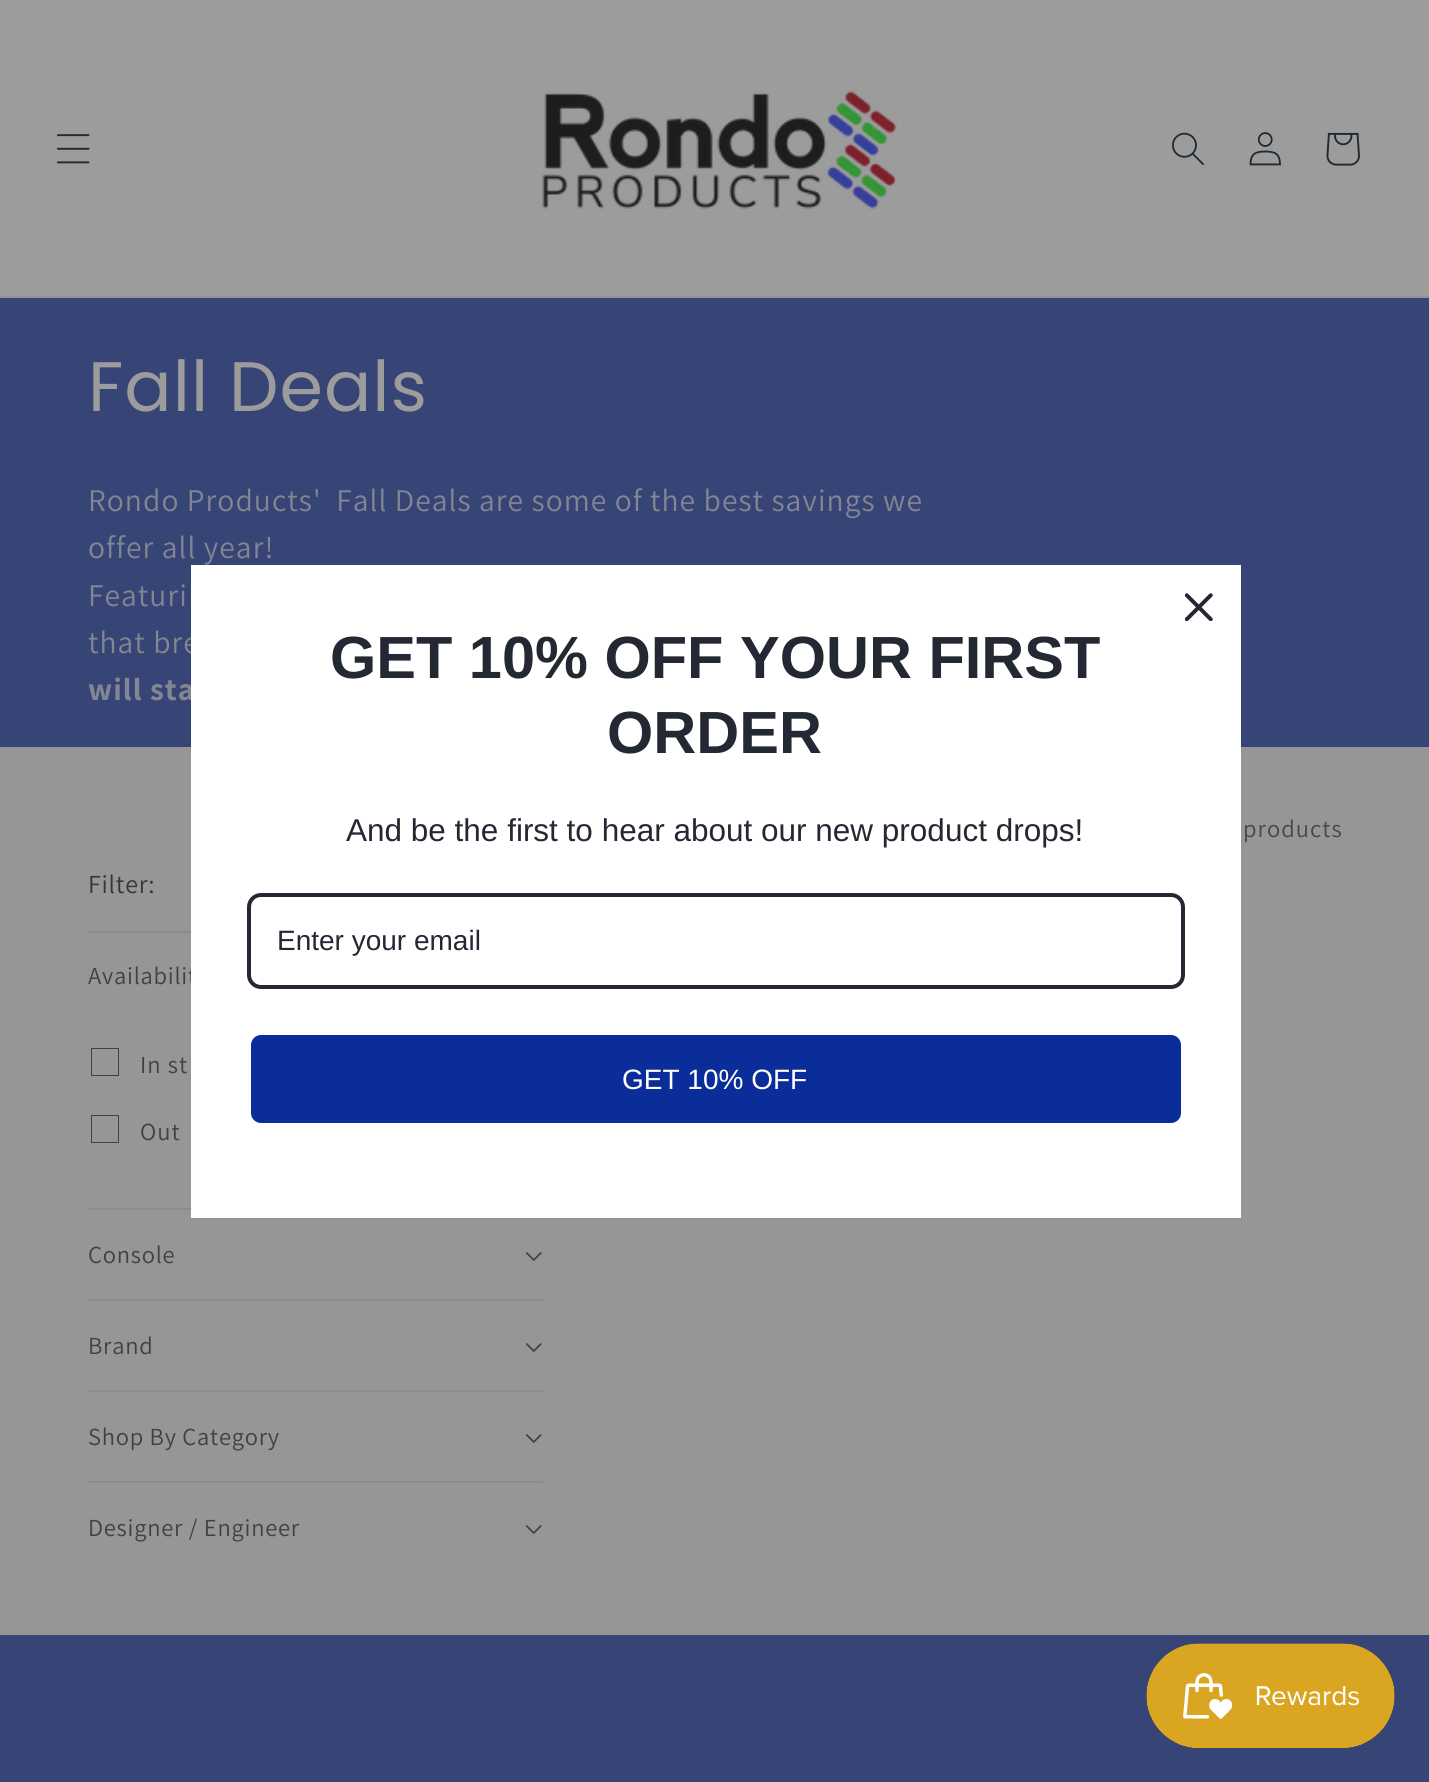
import math
import cairo

surface = cairo.ImageSurface(cairo.FORMAT_RGB24, 1429, 1782)
c = cairo.Context(surface)
options = cairo.FontOptions()
options.set_hint_metrics(cairo.HINT_METRICS_OFF)
options.set_hint_style(cairo.HINT_STYLE_NONE)
c.set_font_options(options)
c.set_miter_limit(4)
def C(code):
 c.set_source_rgb(*(v / 255 for v in bytes.fromhex(code[-6:])))
def F(family, size, italic, bold):
 c.select_font_face(family, cairo.FONT_SLANT_ITALIC if italic else cairo.FONT_SLANT_NORMAL, cairo.FONT_WEIGHT_BOLD if bold else cairo.FONT_WEIGHT_NORMAL)
 c.set_font_size(size)
def T(x, y, s):
 c.move_to(x, y)
 c.show_text(s)
def L(x, y, s, letter, word):
 c.move_to(x, y)
 for ch in s:
  c.show_text(ch)
  c.rel_move_to(letter + word * (ch == ' '), 0)
def R(x, y, w, h):
 c.rectangle(x, y, w, h)
 c.fill()
def Q(x, y, w, h, r):
 c.new_sub_path()
 for i, (u, v) in enumerate([(x + w - r, y + h - r), (x + r, y + h - r), (x + r, y + r), (x + w - r, y + r)]):
  c.arc(u, v, r, i * math.pi / 2, (i + 1) * math.pi / 2)
 c.close_path()
def I(path, x, y, w, h):
 c.save()
 c.set_source_surface(cairo.ImageSurface.create_from_png(path), x, y)
 c.rectangle(x, y, w, h)
 c.fill()
 c.restore()
C('9c9c9c')
c.paint()
C('929393')
R(0,296,1429,2)
I('1.png',57,134,33,30)
I('2.png',542,90,355,119)
I('3.png',1172,132,32,34)
I('4.png',1249,132,32,34)
I('5.png',1326,132,34,34)
C('364476')
R(0,298,1429,449)
F('Poppins',70,0,0)
C('9c9c9c')
L(88,411,'Fall Deals',1.05,0)
F('Assistant',31.5,0,0)
C('828692')
L(88,511,'Rondo Products\'  Fall Deals are some of the best savings we',1.05,0)
L(88,558,'offer all year!',1.05,0)
L(88,606,'Featuri',1.05,0)
L(88,653,'that bre',1.05,0)
F('Assistant',31.5,0,1)
L(88,700,'will sta',1.05,0)
C('969696')
R(0,747,1429,888)
F('Assistant',24.5,0,0)
C('474747')
L(1243,837,'products',1.05,0)
F('Assistant',26,0,0)
C('363636')
L(88,893,'Filter:',.75,0)
C('8b8b8b')
R(88,931,103,2)
F('Assistant',24.5,0,0)
C('414141')
L(88,984,'Availabilit',.75,0)
c.save()
c.rectangle(91,1048,28,28)
c.clip()
c.rectangle(91,1048,28,28)
c.stroke()
c.restore()
L(140,1073,'In st',1.05,0)
c.save()
c.rectangle(91,1115,28,28)
c.clip()
c.rectangle(91,1115,28,28)
c.stroke()
c.restore()
L(140,1140,'Out',1.05,0)
C('8b8b8b')
R(88,1208,103,2)
C('414141')
L(88,1263,'Console',.75,0)
I('6.png',526,1252,16,9)
C('8b8b8b')
R(88,1299,455,2)
C('414141')
L(88,1354,'Brand',.75,0)
I('6.png',526,1343,16,9)
C('8b8b8b')
R(88,1390,455,2)
C('414141')
L(88,1445,'Shop By Category',.75,0)
I('6.png',526,1434,16,9)
C('8b8b8b')
R(88,1481,455,2)
C('414141')
L(88,1536,'Designer / Engineer',.75,0)
I('6.png',526,1525,16,9)
C('ffffff')
R(191,565,1050,653)
I('7.png',1185,593,28,28)
F('Liberation Sans',59.5,0,1)
C('242833')
T(330,678,'GET 10% OFF YOUR FIRST')
T(607,753,'ORDER')
F('Liberation Sans',31.5,0,0)
T(346,841,'And be the first to hear about our new product drops!')
Q(249,895,934,92,12)
c.set_line_width(4)
c.stroke()
F('Liberation Sans',28,0,0)
T(277,950,'Enter your email')
C('0b2d99')
Q(249,1033,934,92,12)
c.fill_preserve()
C('ffffff')
c.stroke()
T(622,1089,'GET 10% OFF')
C('364476')
R(0,1635,1429,147)
I('8.png',1146,1643,249,105)
surface.write_to_png('o.png')
